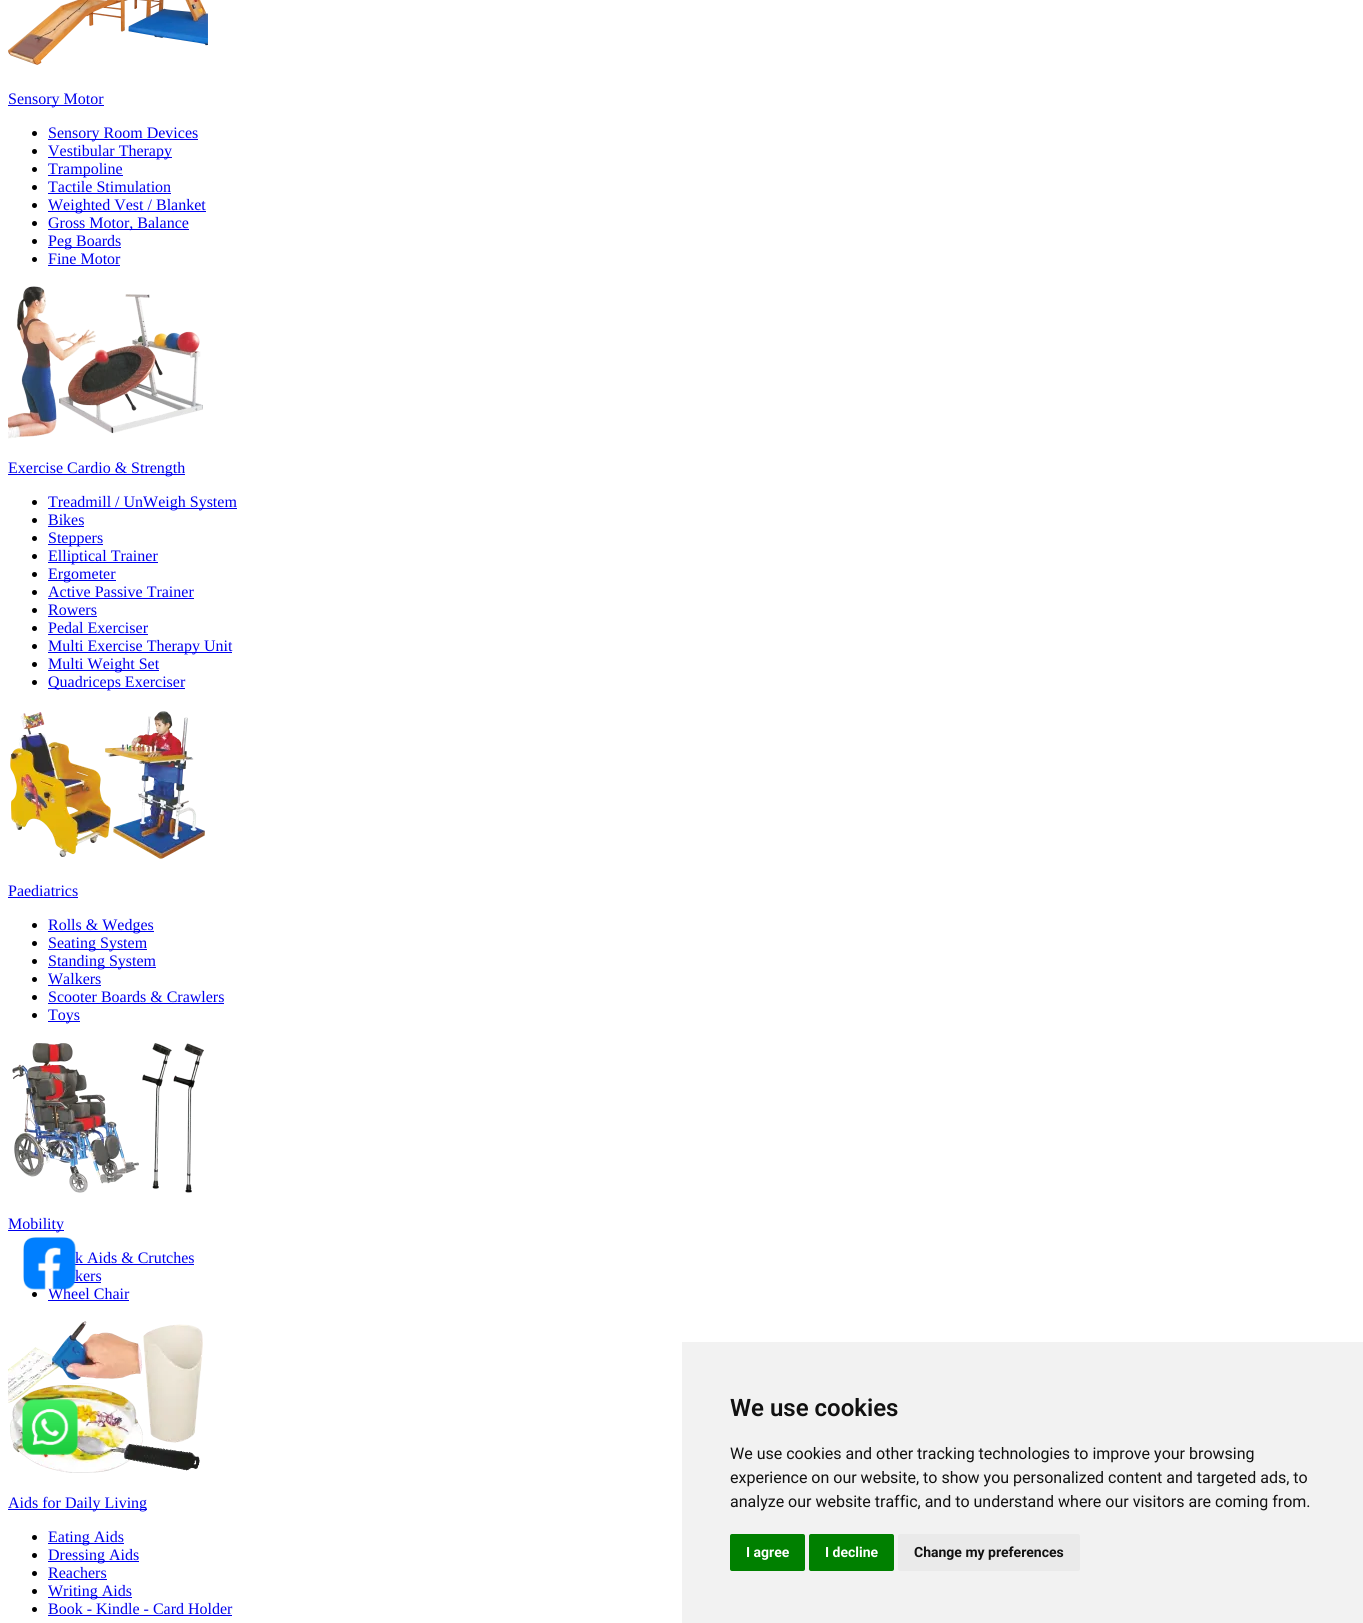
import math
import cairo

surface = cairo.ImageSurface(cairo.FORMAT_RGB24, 1363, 1623)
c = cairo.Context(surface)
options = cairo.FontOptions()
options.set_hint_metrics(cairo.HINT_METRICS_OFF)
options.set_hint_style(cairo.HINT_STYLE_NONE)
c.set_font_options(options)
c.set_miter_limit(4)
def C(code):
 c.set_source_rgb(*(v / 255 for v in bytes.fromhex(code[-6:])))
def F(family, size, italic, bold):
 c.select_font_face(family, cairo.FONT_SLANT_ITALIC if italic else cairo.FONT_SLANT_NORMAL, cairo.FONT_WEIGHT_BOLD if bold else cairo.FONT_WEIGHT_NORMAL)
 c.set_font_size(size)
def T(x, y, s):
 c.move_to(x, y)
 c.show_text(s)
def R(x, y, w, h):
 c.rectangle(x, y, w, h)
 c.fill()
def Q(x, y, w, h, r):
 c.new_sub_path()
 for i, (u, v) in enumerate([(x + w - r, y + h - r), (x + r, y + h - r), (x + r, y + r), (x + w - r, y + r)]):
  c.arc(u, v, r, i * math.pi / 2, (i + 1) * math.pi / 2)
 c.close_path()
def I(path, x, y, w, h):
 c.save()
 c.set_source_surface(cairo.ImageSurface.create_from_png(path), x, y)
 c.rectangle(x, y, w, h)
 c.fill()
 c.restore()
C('ffffff')
c.paint()
I('1.png',8,0,200,65)
C('0000ee')
R(8,105,96,1)
F('Liberation Serif',16,0,0)
T(8,104,'Sensory Motor')
C('000000')
c.new_path()
c.arc(34.5,133.5,2.5,0,2 * math.pi)
c.fill()
C('0000ee')
R(48,139,150,1)
T(48,138,'Sensory Room Devices')
C('000000')
c.new_path()
c.arc(34.5,151.5,2.5,0,2 * math.pi)
c.fill()
C('0000ee')
R(48,157,124,1)
T(48,156,'Vestibular Therapy')
C('000000')
c.new_path()
c.arc(34.5,169.5,2.5,0,2 * math.pi)
c.fill()
C('0000ee')
R(48,175,75,1)
T(48,174,'Trampoline')
C('000000')
c.new_path()
c.arc(34.5,187.5,2.5,0,2 * math.pi)
c.fill()
C('0000ee')
T(48,192,'Tactile Stimulation')
R(48,193,123,1)
C('000000')
c.new_path()
c.arc(34.5,205.5,2.5,0,2 * math.pi)
c.fill()
C('0000ee')
R(48,211,158,1)
T(48,210,'Weighted Vest / Blanket')
C('000000')
c.new_path()
c.arc(34.5,223.5,2.5,0,2 * math.pi)
c.fill()
C('0000ee')
R(48,229,141,1)
T(48,228,'Gross Motor, Balance')
C('000000')
c.new_path()
c.arc(34.5,241.5,2.5,0,2 * math.pi)
c.fill()
C('0000ee')
R(48,247,73,1)
T(48,246,'Peg Boards')
C('000000')
c.new_path()
c.arc(34.5,259.5,2.5,0,2 * math.pi)
c.fill()
C('0000ee')
T(48,264,'Fine Motor')
R(48,265,72,1)
I('2.png',8,286,195,153)
R(8,474,177,1)
T(8,473,'Exercise Cardio & Strength')
C('000000')
c.new_path()
c.arc(34.5,502.5,2.5,0,2 * math.pi)
c.fill()
C('0000ee')
R(48,508,189,1)
T(48,507,'Treadmill / UnWeigh System')
C('000000')
c.new_path()
c.arc(34.5,520.5,2.5,0,2 * math.pi)
c.fill()
C('0000ee')
T(48,525,'Bikes')
R(48,526,36,1)
C('000000')
c.new_path()
c.arc(34.5,538.5,2.5,0,2 * math.pi)
c.fill()
C('0000ee')
R(48,544,55,1)
T(48,543,'Steppers')
C('000000')
c.new_path()
c.arc(34.5,556.5,2.5,0,2 * math.pi)
c.fill()
C('0000ee')
R(48,562,110,1)
T(48,561,'Elliptical Trainer')
C('000000')
c.new_path()
c.arc(34.5,574.5,2.5,0,2 * math.pi)
c.fill()
C('0000ee')
R(48,580,68,1)
T(48,579,'Ergometer')
C('000000')
c.new_path()
c.arc(34.5,592.5,2.5,0,2 * math.pi)
c.fill()
C('0000ee')
T(48,597,'Active Passive Trainer')
R(48,598,146,1)
C('000000')
c.new_path()
c.arc(34.5,610.5,2.5,0,2 * math.pi)
c.fill()
C('0000ee')
T(48,615,'Rowers')
R(48,616,49,1)
C('000000')
c.new_path()
c.arc(34.5,628.5,2.5,0,2 * math.pi)
c.fill()
C('0000ee')
T(48,633,'Pedal Exerciser')
R(48,634,100,1)
C('000000')
c.new_path()
c.arc(34.5,646.5,2.5,0,2 * math.pi)
c.fill()
C('0000ee')
R(48,652,184,1)
T(48,651,'Multi Exercise Therapy Unit')
C('000000')
c.new_path()
c.arc(34.5,664.5,2.5,0,2 * math.pi)
c.fill()
C('0000ee')
R(48,670,111,1)
T(48,669,'Multi Weight Set')
C('000000')
c.new_path()
c.arc(34.5,682.5,2.5,0,2 * math.pi)
c.fill()
C('0000ee')
R(48,688,137,1)
T(48,687,'Quadriceps Exerciser')
I('3.png',10,711,195,148)
T(8,896,'Paediatrics')
R(8,897,70,1)
C('000000')
c.new_path()
c.arc(34.5,925.5,2.5,0,2 * math.pi)
c.fill()
C('0000ee')
R(48,931,106,1)
T(48,930,'Rolls & Wedges')
C('000000')
c.new_path()
c.arc(34.5,943.5,2.5,0,2 * math.pi)
c.fill()
C('0000ee')
R(48,949,99,1)
T(48,948,'Seating System')
C('000000')
c.new_path()
c.arc(34.5,961.5,2.5,0,2 * math.pi)
c.fill()
C('0000ee')
R(48,967,108,1)
T(48,966,'Standing System')
C('000000')
c.new_path()
c.arc(34.5,979.5,2.5,0,2 * math.pi)
c.fill()
C('0000ee')
T(48,984,'Walkers')
R(48,985,53,1)
C('000000')
c.new_path()
c.arc(34.5,997.5,2.5,0,2 * math.pi)
c.fill()
C('0000ee')
T(48,1002,'Scooter Boards & Crawlers')
R(48,1003,176,1)
C('000000')
c.new_path()
c.arc(34.5,1015.5,2.5,0,2 * math.pi)
c.fill()
C('0000ee')
R(48,1021,32,1)
T(48,1020,'Toys')
I('4.png',12,1043,192,150)
R(8,1230,56,1)
T(8,1229,'Mobility')
T(75,1263,'k Aids & Crutches')
R(59,1264,135,1)
T(75,1281,'kers')
R(73,1282,28,1)
C('000000')
c.new_path()
c.arc(34.5,1294.5,2.5,0,2 * math.pi)
c.fill()
C('0000ee')
T(48,1299,'Wheel Chair')
R(48,1300,81,1)
I('5.png',8,1321,195,152)
R(8,1509,139,1)
T(8,1508,'Aids for Daily Living')
C('000000')
c.new_path()
c.arc(34.5,1537.5,2.5,0,2 * math.pi)
c.fill()
C('0000ee')
R(48,1543,76,1)
T(48,1542,'Eating Aids')
C('000000')
c.new_path()
c.arc(34.5,1555.5,2.5,0,2 * math.pi)
c.fill()
C('0000ee')
R(48,1561,91,1)
T(48,1560,'Dressing Aids')
C('000000')
c.new_path()
c.arc(34.5,1573.5,2.5,0,2 * math.pi)
c.fill()
C('0000ee')
T(48,1578,'Reachers')
R(48,1579,59,1)
C('000000')
c.new_path()
c.arc(34.5,1591.5,2.5,0,2 * math.pi)
c.fill()
C('0000ee')
R(48,1597,84,1)
T(48,1596,'Writing Aids')
C('000000')
c.new_path()
c.arc(34.5,1609.5,2.5,0,2 * math.pi)
c.fill()
C('0000ee')
T(48,1614,'Book - Kindle - Card Holder')
R(48,1615,184,1)
I('6.png',23,1237,53,53)
I('7.png',22,1399,57,56)
C('f2f2f2')
R(682,1342,681,281)
F('Roboto SemiBold',24,0,0)
C('111111')
T(730,1416,'We use cookies')
F('Roboto',16,0,0)
T(730,1459,'We use cookies and other tracking technologies to improve your browsing')
T(730,1483,'experience on our website, to show you personalized content and targeted ads, to')
T(730,1507,'analyze our website traffic, and to understand where our visitors are coming from.')
C('008000')
Q(730,1534,75,37,2)
c.fill()
F('Roboto',14,0,1)
C('ffffff')
T(746,1557,'I agree')
C('008000')
Q(809,1534,85,37,2)
c.fill()
C('ffffff')
T(825,1557,'I decline')
C('eaeaea')
Q(898,1534,182,37,2)
c.fill()
C('111111')
T(914,1557,'Change my preferences')
surface.write_to_png('o.png')
